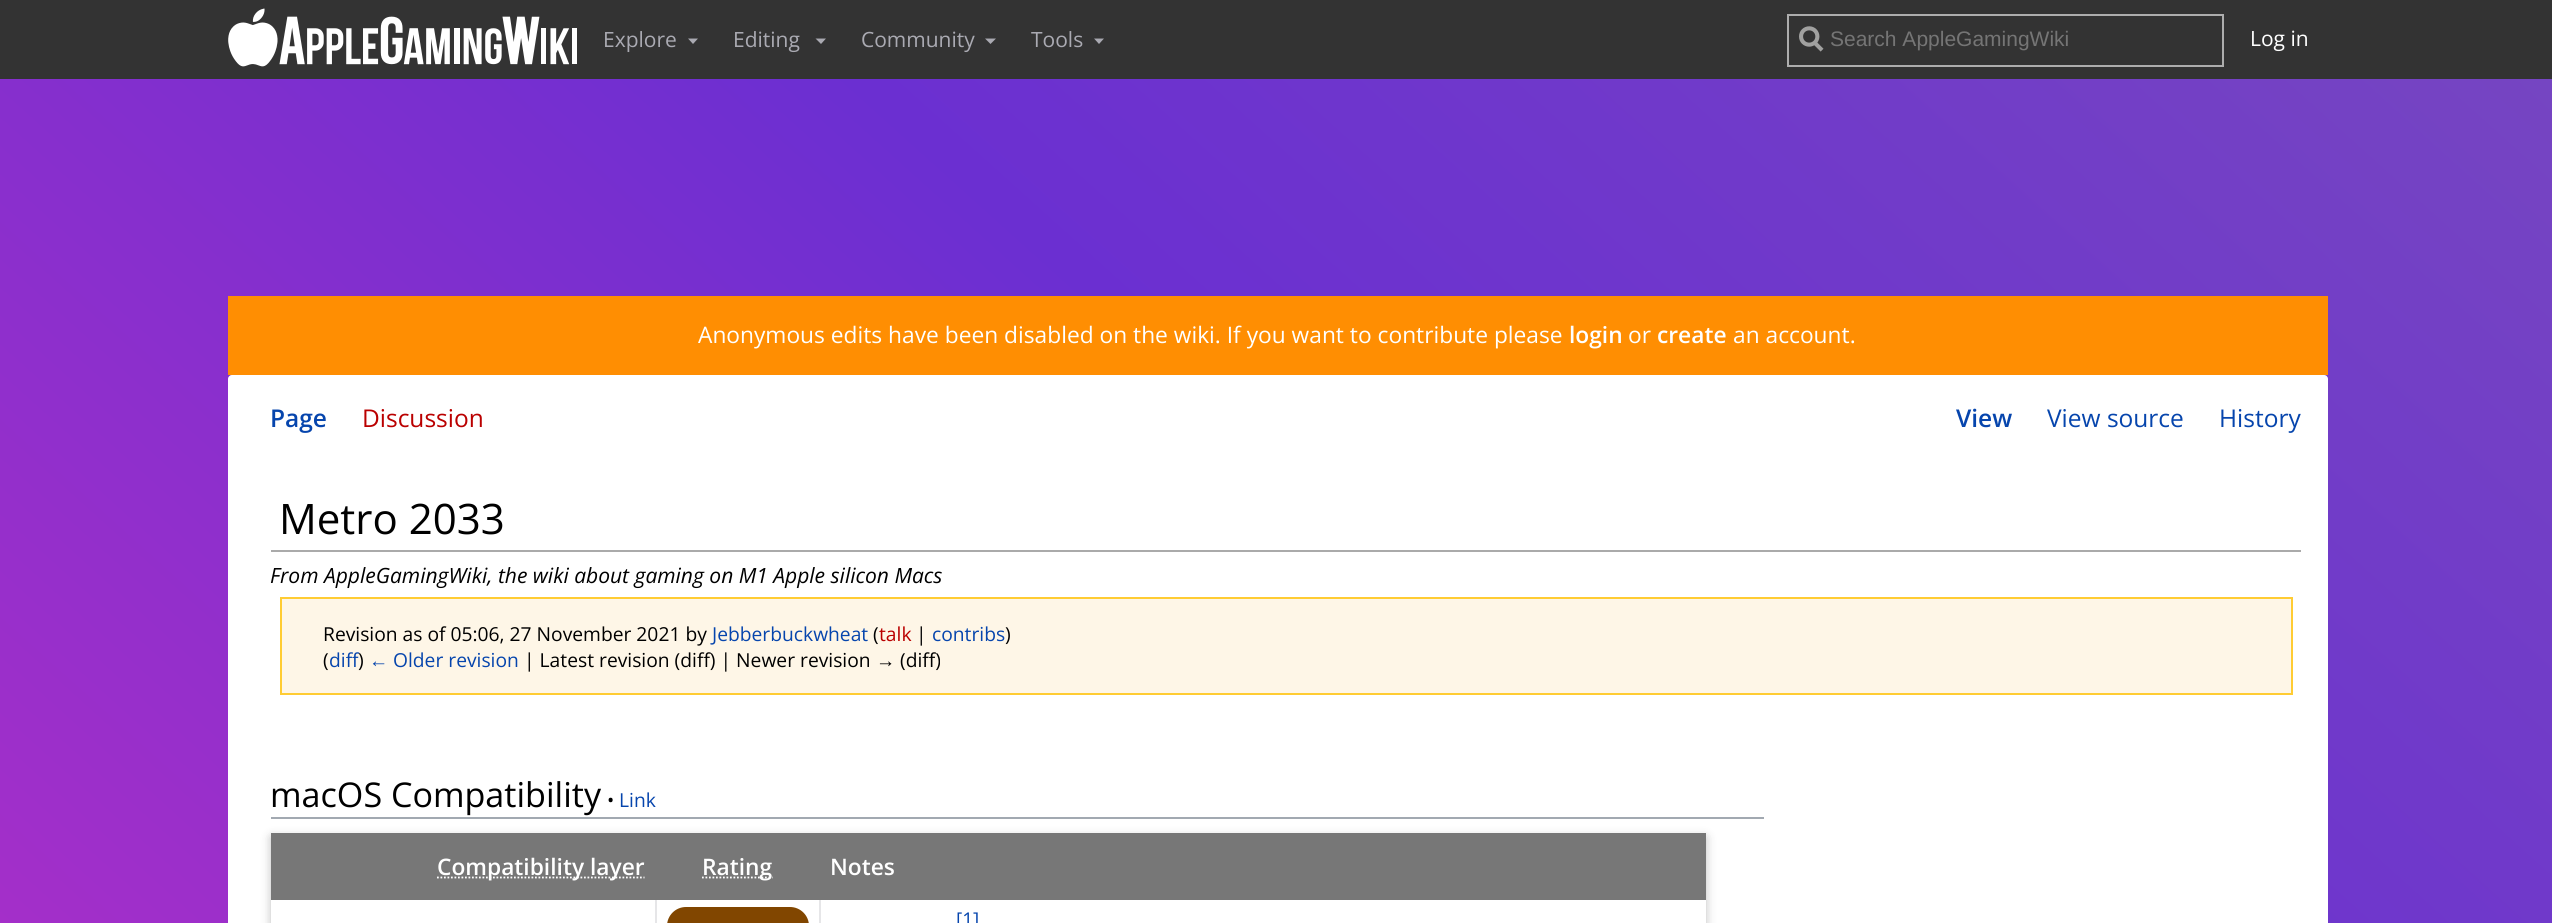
import math
import cairo

surface = cairo.ImageSurface(cairo.FORMAT_RGB24, 2552, 923)
c = cairo.Context(surface)
options = cairo.FontOptions()
options.set_hint_metrics(cairo.HINT_METRICS_OFF)
options.set_hint_style(cairo.HINT_STYLE_NONE)
c.set_font_options(options)
c.set_miter_limit(4)
def C(code):
 c.set_source_rgb(*(v / 255 for v in bytes.fromhex(code[-6:])))
def F(family, size, italic, bold):
 c.select_font_face(family, cairo.FONT_SLANT_ITALIC if italic else cairo.FONT_SLANT_NORMAL, cairo.FONT_WEIGHT_BOLD if bold else cairo.FONT_WEIGHT_NORMAL)
 c.set_font_size(size)
def T(x, y, s):
 c.move_to(x, y)
 c.show_text(s)
def R(x, y, w, h):
 c.rectangle(x, y, w, h)
 c.fill()
def Q(x, y, w, h, r):
 c.new_sub_path()
 for i, (u, v) in enumerate([(x + w - r, y + h - r), (x + r, y + h - r), (x + r, y + r), (x + w - r, y + r)]):
  c.arc(u, v, r, i * math.pi / 2, (i + 1) * math.pi / 2)
 c.close_path()
def S(x, y, w, h, r, blur, alpha):
 c.push_group_with_content(cairo.CONTENT_ALPHA)
 c.set_operator(cairo.OPERATOR_SOURCE)
 for i in range(15, -16, -2):
  e = blur * i / 6
  if min(w, h) + 2 * e > 0:
   c.set_source_rgba(0, 0, 0, alpha * math.erfc((i - 1) / 8.5) / 2)
   Q(x - e, y - e, w + 2 * e, h + 2 * e, max(0, min(r + e + blur * .6, min(w, h) / 2 + e)))
   c.fill()
 c.mask(c.pop_group())
def I(path, x, y, w, h):
 c.save()
 c.set_source_surface(cairo.ImageSurface.create_from_png(path), x, y)
 c.rectangle(x, y, w, h)
 c.fill()
 c.restore()
C('ffffff')
c.paint()
gradient = cairo.LinearGradient(2078,-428,475,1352)
gradient.add_color_stop_rgba(0,0.463,0.275,0.757,1)
gradient.add_color_stop_rgba(.5,0.42,0.184,0.82,1)
gradient.add_color_stop_rgba(1,0.643,0.184,0.788,1)
c.set_source(gradient)
R(0,79,2552,844)
C('333333')
R(0,0,2552,79)
I('1.png',228,8,349,59)
F('Open Sans',21,0,0)
C('aaaab2')
T(603,47,'Explore')
c.new_path()
c.move_to(688,38.5)
c.line_to(698,38.5)
c.line_to(693,44)
c.close_path()
c.fill()
T(733,47,'Editing')
c.new_path()
c.move_to(815.5,38.5)
c.line_to(826,38.5)
c.line_to(821,44)
c.close_path()
c.fill()
T(861,47,'Community')
c.new_path()
c.move_to(985,38.5)
c.line_to(996,38.5)
c.line_to(990.5,44)
c.close_path()
c.fill()
T(1031,47,'Tools')
c.new_path()
c.move_to(1094,38.5)
c.line_to(1104,38.5)
c.line_to(1099,44)
c.close_path()
c.fill()
I('2.png',1799,26,25,26)
c.rectangle(1788,15,435,51)
C('adadad')
c.stroke()
F('Liberation Sans',21,0,0)
C('757575')
T(1830,46,'Search AppleGamingWiki')
F('Open Sans',21,0,0)
C('ffffff')
T(2250,46,'Log in')
C('ff8e02')
R(228,296,2100,79)
F('Open Sans',22.75,0,0)
C('ffffff')
T(698,343,'Anonymous edits have been disabled on the wiki. If you want to contribute please')
F('Open Sans SemiBold',22.75,0,0)
T(1569,343,'login')
F('Open Sans',22.75,0,0)
T(1628,343,'or')
F('Open Sans SemiBold',22.75,0,0)
T(1657,343,'create')
F('Open Sans',22.75,0,0)
T(1733,343,'an account.')
Q(228,375,2100,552,4)
c.fill()
F('Open Sans SemiBold',24.5,0,0)
C('0645ad')
T(270,427,'Page')
F('Open Sans',24.5,0,0)
C('ba0000')
T(362,427,'Discussion')
F('Open Sans SemiBold',24.5,0,0)
C('0645ad')
T(1956,427,'View')
F('Open Sans',24.5,0,0)
T(2047,427,'View source')
T(2219,427,'History')
C('aaaaaa')
R(271,550,2030,2)
F('Open Sans',42,0,0)
C('000000')
T(279,534,'Metro 2033')
F('Open Sans',21,1,0)
T(270,583,'From AppleGamingWiki, the wiki about gaming on M1 Apple silicon Macs')
C('fef6e7')
c.rectangle(281,598,2011,96)
c.fill_preserve()
C('ffcc33')
c.stroke()
F('Open Sans',19.25,0,0)
C('000000')
T(323,641,'Revision as of 05:06, 27 November 2021 by')
C('0645ad')
T(712,641,'Jebberbuckwheat')
C('000000')
T(873,641,'(')
C('ba0000')
T(879,641,'talk')
C('000000')
T(916,641,'|')
C('0645ad')
T(932,641,'contribs')
C('000000')
T(1005,641,')')
T(323,667,'(')
C('0645ad')
T(329,667,'diff')
C('000000')
T(358,667,')')
F('Liberation Sans',19.25,0,0)
C('0645ad')
T(369,667,'←')
F('Open Sans',19.25,0,0)
T(393,667,'Older revision')
C('000000')
T(524,667,'| Latest revision (diff) | Newer revision')
F('Liberation Sans',19.25,0,0)
T(876,667,'→')
F('Open Sans',19.25,0,0)
T(900,667,'(diff)')
C('a2a9b1')
R(271,817,1493,2)
F('Open Sans',34.1,0,0)
C('000000')
T(270,807,'macOS Compatibility')
F('Open Sans',19.25,0,0)
T(607,807,'•')
C('0645ad')
T(619,807,'Link')
C('000000')
S(271,837,1435,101,0,5,.25)
C('ffffff')
R(271,900,1435,23)
C('777777')
R(271,833,1435,67)
c.new_path()
c.move_to(437,877.5)
c.line_to(644.5,877.5)
C('ffffff')
c.set_line_width(1.8)
c.set_dash([1.75,1.75])
c.stroke()
F('Open Sans SemiBold',22.75,0,0)
T(437,875,'Compatibility layer')
c.new_path()
c.move_to(702,877.5)
c.line_to(772.5,877.5)
c.stroke()
T(702,875,'Rating')
T(830,875,'Notes')
C('e6e6e8')
R(655,900,2,23)
C('814600')
Q(667,907,142,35,19)
c.fill()
C('e6e6e8')
R(819,900,2,23)
F('Open Sans',19,0,0)
C('0645ad')
T(956,926,'[1]')
surface.write_to_png('o.png')
